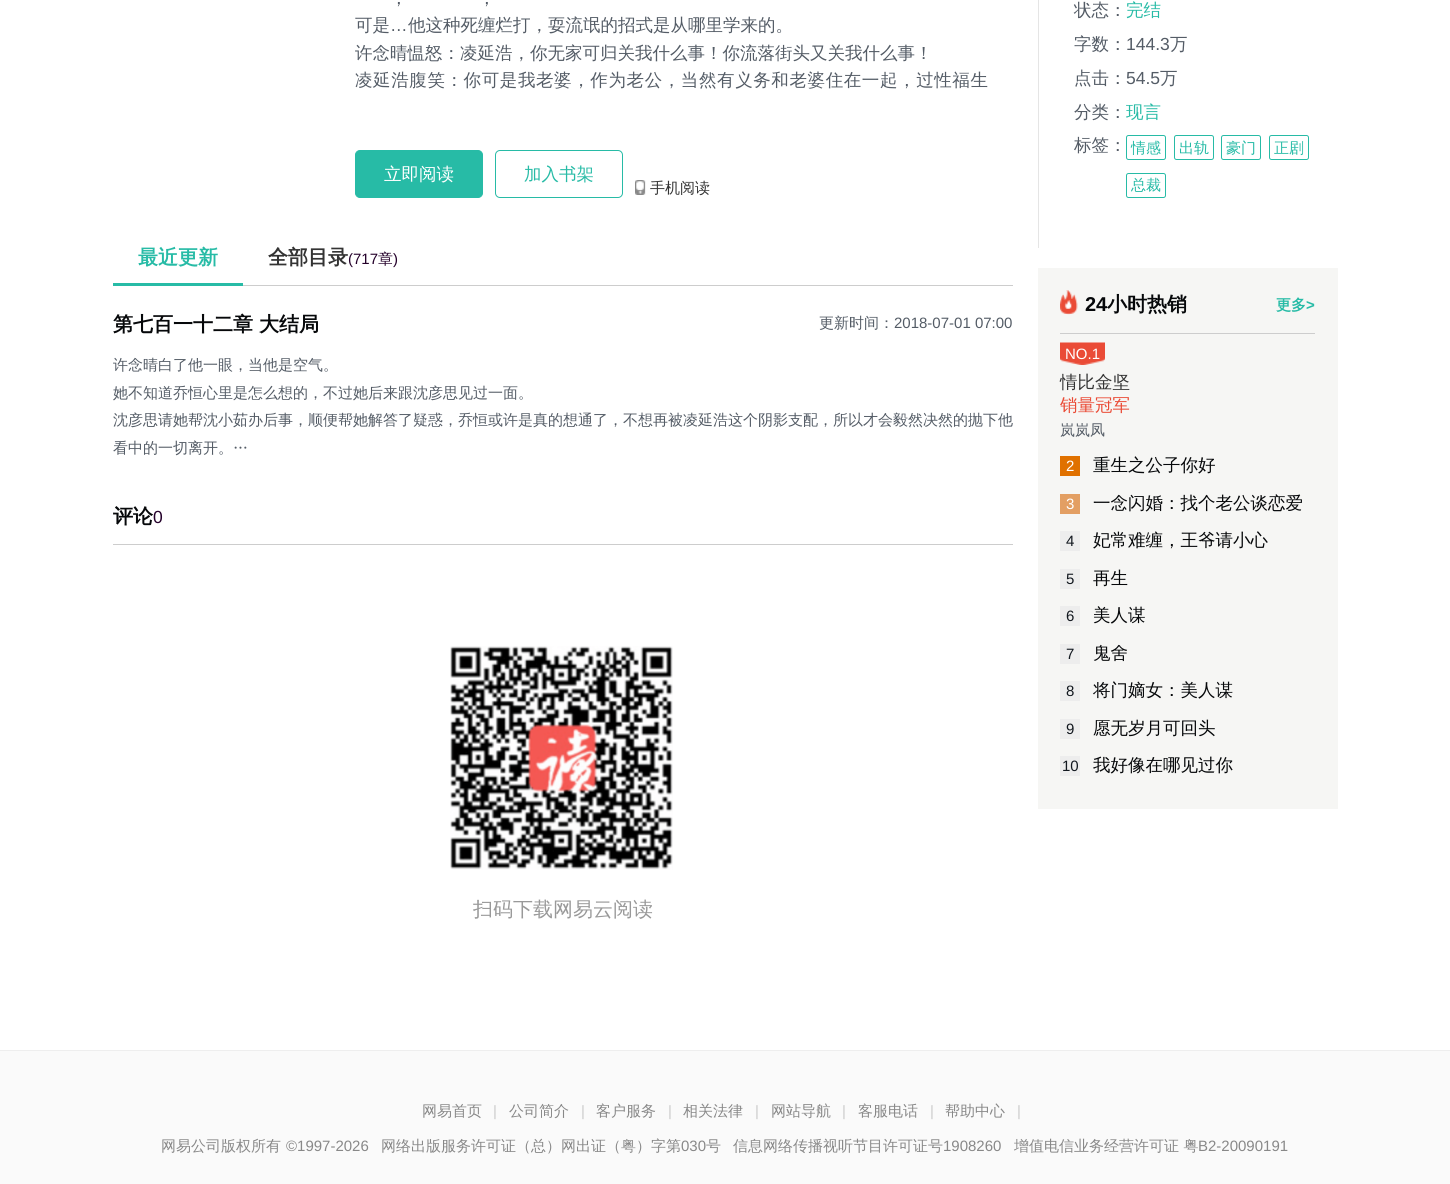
import math
import cairo

surface = cairo.ImageSurface(cairo.FORMAT_RGB24, 1450, 1184)
c = cairo.Context(surface)
options = cairo.FontOptions()
options.set_hint_metrics(cairo.HINT_METRICS_OFF)
options.set_hint_style(cairo.HINT_STYLE_NONE)
c.set_font_options(options)
c.set_miter_limit(4)
def C(code):
 c.set_source_rgb(*(v / 255 for v in bytes.fromhex(code[-6:])))
def F(family, size, italic, bold):
 c.select_font_face(family, cairo.FONT_SLANT_ITALIC if italic else cairo.FONT_SLANT_NORMAL, cairo.FONT_WEIGHT_BOLD if bold else cairo.FONT_WEIGHT_NORMAL)
 c.set_font_size(size)
def T(x, y, s):
 c.move_to(x, y)
 c.show_text(s)
def L(x, y, s, letter, word):
 c.move_to(x, y)
 for ch in s:
  c.show_text(ch)
  c.rel_move_to(letter + word * (ch == ' '), 0)
def R(x, y, w, h):
 c.rectangle(x, y, w, h)
 c.fill()
def Q(x, y, w, h, r):
 c.new_sub_path()
 for i, (u, v) in enumerate([(x + w - r, y + h - r), (x + r, y + h - r), (x + r, y + r), (x + w - r, y + r)]):
  c.arc(u, v, r, i * math.pi / 2, (i + 1) * math.pi / 2)
 c.close_path()
def I(path, x, y, w, h):
 c.save()
 c.set_source_surface(cairo.ImageSurface.create_from_png(path), x, y)
 c.rectangle(x, y, w, h)
 c.fill()
 c.restore()
C('ffffff')
c.paint()
F('WenQuanYi Zen Hei Medium',17.5,0,0)
C('545c66')
T(390,4,'，')
T(478,4,'，')
T(355,31,'可是')
F('Liberation Sans',17.5,0,0)
T(390,31,'…')
F('WenQuanYi Zen Hei Medium',17.5,0,0)
T(408,31,'他这种死缠烂打，耍流氓的招式是从哪里学来的。')
T(355,59,'许念晴愠怒：凌延浩，你无家可归关我什么事！你流落街头又关我什么事！')
L(355,86,'凌延浩腹笑：你可是我老婆，作为老公，当然有义务和老婆住在一起，过性福生',.6,0)
C('27bba6')
Q(355.5,150.5,127,47,4.5)
c.fill_preserve()
c.set_line_width(1)
c.stroke()
C('ffffff')
T(384,180,'立即阅读')
Q(495.5,150.5,127,47,4.5)
C('27bba6')
c.stroke()
T(524,180,'加入书架')
I('1.png',635,180,11,15)
F('WenQuanYi Zen Hei Medium',15,0,0)
C('333333')
T(650,193,'手机阅读')
C('cdcdcd')
R(243,285,770,1)
C('27bba6')
R(113,283,130,3)
F('WenQuanYi Zen Hei',20,0,1)
T(138,264,'最近更新')
C('333333')
T(268,264,'全部目录')
F('Liberation Sans',15,0,0)
C('24002a')
T(348,264,'(717')
F('WenQuanYi Zen Hei Medium',15,0,0)
T(378,264,'章')
F('Liberation Sans',15,0,0)
T(393,264,')')
F('WenQuanYi Zen Hei',20,0,1)
C('06080a')
T(113,331,'第七百一十二章 大结局')
F('WenQuanYi Zen Hei Medium',15,0,0)
C('545c66')
T(819,328,'更新时间：')
F('Liberation Sans',15,0,0)
T(894,328,'2018-07-01 07:00')
F('WenQuanYi Zen Hei Medium',15,0,0)
T(113,370,'许念晴白了他一眼，当他是空气。')
T(113,398,'她不知道乔恒心里是怎么想的，不过她后来跟沈彦思见过一面。')
T(113,425,'沈彦思请她帮沈小茹办后事，顺便帮她解答了疑惑，乔恒或许是真的想通了，不想再被凌延浩这个阴影支配，所以才会毅然决然的抛下他')
T(113,453,'看中的一切离开。…')
C('cdcdcd')
R(113,544,900,1)
F('WenQuanYi Zen Hei',20,0,1)
C('06080a')
T(113,523,'评论')
F('Liberation Sans',17.5,0,0)
C('24002a')
T(153,523,'0')
I('2.png',450,646,223,224)
F('WenQuanYi Zen Hei Medium',20,0,0)
C('999999')
T(473,916,'扫码下载网易云阅读')
C('e5e5e5')
R(1038,0,1,248)
F('WenQuanYi Zen Hei Medium',17.5,0,0)
C('545c66')
T(1074,16,'状态：')
C('27bba6')
T(1126,16,'完结')
C('545c66')
T(1074,50,'字数：')
F('Liberation Sans',17.5,0,0)
T(1126,50,'144.3')
F('WenQuanYi Zen Hei Medium',17.5,0,0)
T(1170,50,'万')
T(1074,84,'点击：')
F('Liberation Sans',17.5,0,0)
T(1126,84,'54.5')
F('WenQuanYi Zen Hei Medium',17.5,0,0)
T(1160,84,'万')
T(1074,118,'分类：')
C('27bba6')
T(1126,118,'现言')
C('545c66')
T(1074,151,'标签：')
Q(1126.5,135.5,39,24,2)
C('27bba6')
c.stroke()
F('WenQuanYi Zen Hei Medium',15,0,0)
T(1131,153,'情感')
Q(1174.5,135.5,39,24,2)
c.stroke()
T(1179,153,'出轨')
Q(1221.5,135.5,39,24,2)
c.stroke()
T(1226,153,'豪门')
Q(1269.5,135.5,39,24,2)
c.stroke()
T(1274,153,'正剧')
Q(1126.5,173.5,39,24,2)
c.stroke()
T(1131,190,'总裁')
C('f6f6f4')
R(1038,268,300,541)
C('cdcdcd')
R(1060,333,255,1)
I('3.png',1060,290,18,25)
F('Liberation Sans',20,0,1)
C('06080a')
T(1085,311,'24')
F('WenQuanYi Zen Hei',20,0,1)
T(1107,311,'小时热销')
F('WenQuanYi Zen Hei',15,0,1)
C('27bba6')
T(1276,310,'更多')
F('Liberation Sans',15,0,1)
T(1306,310,'>')
I('4.png',1060,342,45,23)
F('Liberation Sans',15,0,0)
C('ffffff')
T(1065,359,'NO.1')
F('WenQuanYi Zen Hei Medium',17.5,0,0)
C('333333')
T(1060,388,'情比金坚')
C('ea4b36')
T(1060,411,'销量冠军')
c.save()
c.rectangle(1060,423,175,15)
c.clip()
F('WenQuanYi Zen Hei Medium',15,0,0)
C('545c66')
T(1060,435,'岚岚凤')
c.restore()
C('e07100')
R(1060,456,20,20)
F('Liberation Sans',15,0,0)
C('ffffff')
T(1066,471,'2')
F('WenQuanYi Zen Hei Medium',17.5,0,0)
C('06080a')
T(1093,471,'重生之公子你好')
C('e39f63')
R(1060,494,20,20)
F('Liberation Sans',15,0,0)
C('ffffff')
T(1066,509,'3')
F('WenQuanYi Zen Hei Medium',17.5,0,0)
C('06080a')
T(1093,509,'一念闪婚：找个老公谈恋爱')
C('ededed')
R(1060,531,20,20)
F('Liberation Sans',15,0,0)
C('12181f')
T(1066,546,'4')
F('WenQuanYi Zen Hei Medium',17.5,0,0)
C('06080a')
T(1093,546,'妃常难缠，王爷请小心')
C('ededed')
R(1060,569,20,20)
F('Liberation Sans',15,0,0)
C('12181f')
T(1066,584,'5')
F('WenQuanYi Zen Hei Medium',17.5,0,0)
C('06080a')
T(1093,584,'再生')
C('ededed')
R(1060,606,20,20)
F('Liberation Sans',15,0,0)
C('12181f')
T(1066,621,'6')
F('WenQuanYi Zen Hei Medium',17.5,0,0)
C('06080a')
T(1093,621,'美人谋')
C('ededed')
R(1060,644,20,20)
F('Liberation Sans',15,0,0)
C('12181f')
T(1066,659,'7')
F('WenQuanYi Zen Hei Medium',17.5,0,0)
C('06080a')
T(1093,659,'鬼舍')
C('ededed')
R(1060,681,20,20)
F('Liberation Sans',15,0,0)
C('12181f')
T(1066,696,'8')
F('WenQuanYi Zen Hei Medium',17.5,0,0)
C('06080a')
T(1093,696,'将门嫡女：美人谋')
C('ededed')
R(1060,719,20,20)
F('Liberation Sans',15,0,0)
C('12181f')
T(1066,734,'9')
F('WenQuanYi Zen Hei Medium',17.5,0,0)
C('06080a')
T(1093,734,'愿无岁月可回头')
C('ededed')
R(1060,756,20,20)
F('Liberation Sans',15,0,0)
C('12181f')
T(1062,771,'10')
F('WenQuanYi Zen Hei Medium',17.5,0,0)
C('06080a')
T(1093,771,'我好像在哪见过你')
C('fafafa')
R(0,1051,1450,133)
C('eeeeee')
R(0,1050,1450,1)
F('WenQuanYi Zen Hei Medium',15,0,0)
C('888888')
T(422,1116,'网易首页')
F('Liberation Sans',15,0,0)
C('cccccc')
T(493,1116,'|')
F('WenQuanYi Zen Hei Medium',15,0,0)
C('888888')
T(509,1116,'公司简介')
F('Liberation Sans',15,0,0)
C('cccccc')
T(581,1116,'|')
F('WenQuanYi Zen Hei Medium',15,0,0)
C('888888')
T(596,1116,'客户服务')
F('Liberation Sans',15,0,0)
C('cccccc')
T(668,1116,'|')
F('WenQuanYi Zen Hei Medium',15,0,0)
C('888888')
T(683,1116,'相关法律')
F('Liberation Sans',15,0,0)
C('cccccc')
T(755,1116,'|')
F('WenQuanYi Zen Hei Medium',15,0,0)
C('888888')
T(771,1116,'网站导航')
F('Liberation Sans',15,0,0)
C('cccccc')
T(842,1116,'|')
F('WenQuanYi Zen Hei Medium',15,0,0)
C('888888')
T(858,1116,'客服电话')
F('Liberation Sans',15,0,0)
C('cccccc')
T(930,1116,'|')
F('WenQuanYi Zen Hei Medium',15,0,0)
C('888888')
T(945,1116,'帮助中心')
F('Liberation Sans',15,0,0)
C('cccccc')
T(1017,1116,'|')
F('WenQuanYi Zen Hei Medium',15,0,0)
C('888888')
T(161,1151,'网易公司版权所有')
F('Liberation Sans',15,0,0)
T(286,1151,'©1997-2026')
F('WenQuanYi Zen Hei Medium',15,0,0)
T(381,1151,'网络出版服务许可证（总）网出证（粤）字第')
F('Liberation Sans',15,0,0)
T(681,1151,'030')
F('WenQuanYi Zen Hei Medium',15,0,0)
T(706,1151,'号')
T(733,1151,'信息网络传播视听节目许可证号')
F('Liberation Sans',15,0,0)
T(943,1151,'1908260')
F('WenQuanYi Zen Hei Medium',15,0,0)
T(1014,1151,'增值电信业务经营许可证 粤')
F('Liberation Sans',15,0,0)
T(1198,1151,'B2-20090191')
surface.write_to_png('o.png')
